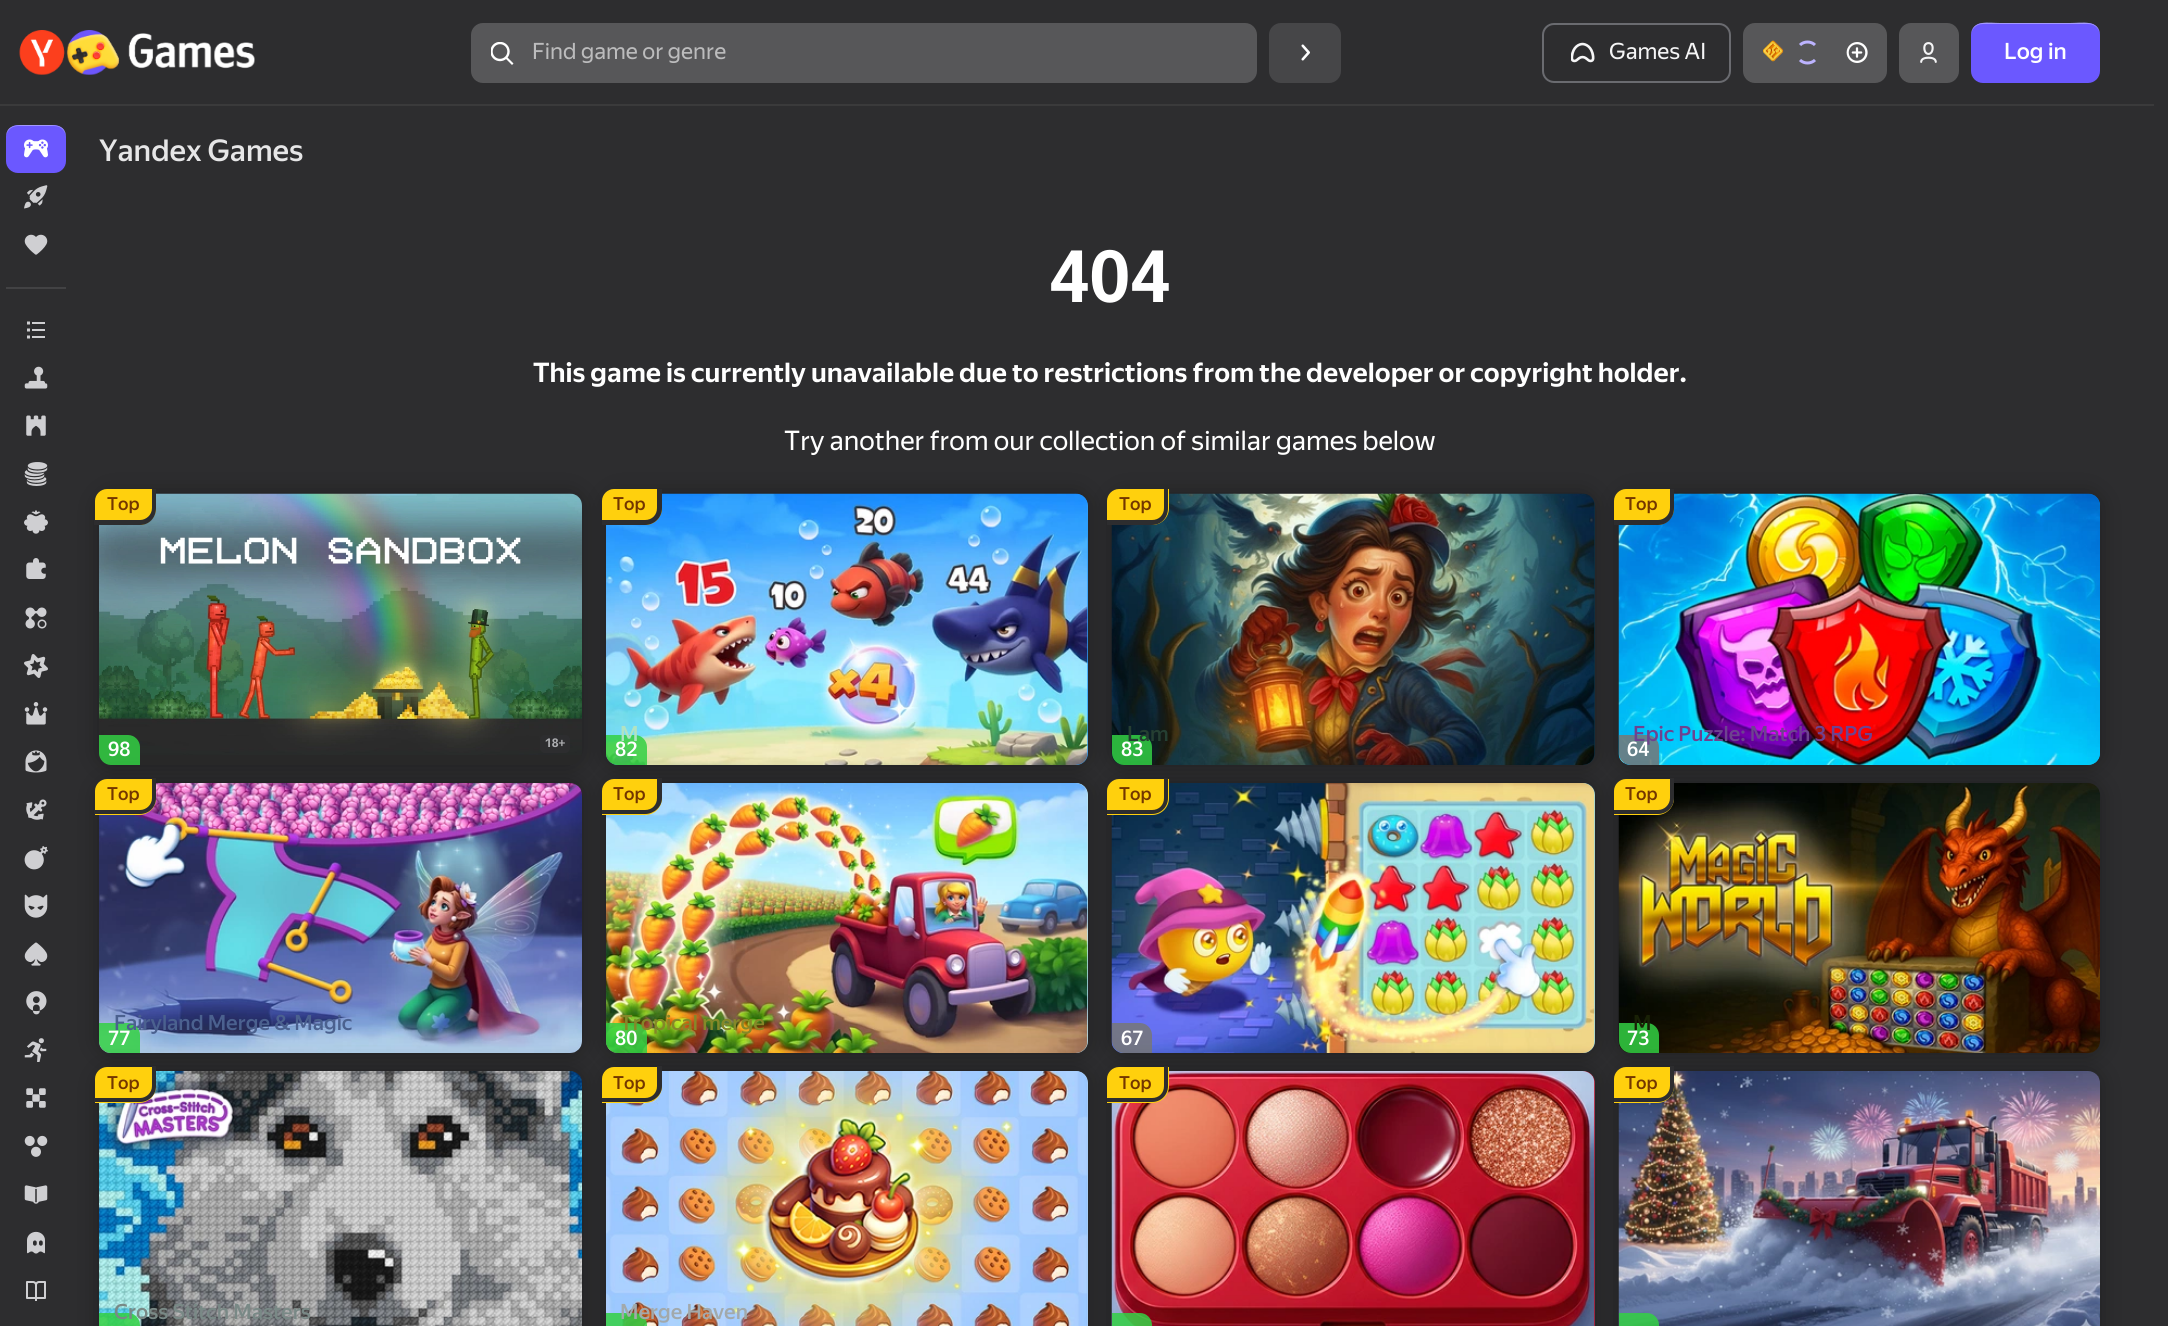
import math
import cairo

surface = cairo.ImageSurface(cairo.FORMAT_RGB24, 2168, 1326)
c = cairo.Context(surface)
options = cairo.FontOptions()
options.set_hint_metrics(cairo.HINT_METRICS_OFF)
options.set_hint_style(cairo.HINT_STYLE_NONE)
c.set_font_options(options)
c.set_miter_limit(4)
def C(code):
 c.set_source_rgb(*(v / 255 for v in bytes.fromhex(code[-6:])))
def F(family, size, italic, bold):
 c.select_font_face(family, cairo.FONT_SLANT_ITALIC if italic else cairo.FONT_SLANT_NORMAL, cairo.FONT_WEIGHT_BOLD if bold else cairo.FONT_WEIGHT_NORMAL)
 c.set_font_size(size)
def T(x, y, s):
 c.move_to(x, y)
 c.show_text(s)
def L(x, y, s, letter, word):
 c.move_to(x, y)
 for ch in s:
  c.show_text(ch)
  c.rel_move_to(letter + word * (ch == ' '), 0)
def R(x, y, w, h):
 c.rectangle(x, y, w, h)
 c.fill()
def Q(x, y, w, h, r):
 c.new_sub_path()
 for i, (u, v) in enumerate([(x + w - r, y + h - r), (x + r, y + h - r), (x + r, y + r), (x + w - r, y + r)]):
  c.arc(u, v, r, i * math.pi / 2, (i + 1) * math.pi / 2)
 c.close_path()
def S(x, y, w, h, r, blur, alpha):
 c.push_group_with_content(cairo.CONTENT_ALPHA)
 c.set_operator(cairo.OPERATOR_SOURCE)
 for i in range(15, -16, -2):
  e = blur * i / 6
  if min(w, h) + 2 * e > 0:
   c.set_source_rgba(0, 0, 0, alpha * math.erfc((i - 1) / 8.5) / 2)
   Q(x - e, y - e, w + 2 * e, h + 2 * e, max(0, min(r + e + blur * .6, min(w, h) / 2 + e)))
   c.fill()
 c.mask(c.pop_group())
def I(path, x, y, w, h):
 c.save()
 c.set_source_surface(cairo.ImageSurface.create_from_png(path), x, y)
 c.rectangle(x, y, w, h)
 c.fill()
 c.restore()
C('2d2d2f')
c.paint()
C('3a3a3b')
R(0,104,2154,2)
I('1.png',19,30,236,45)
C('575759')
Q(471,23,786,60,12)
c.fill()
c.save()
c.rectangle(491,42,24,24)
c.clip()
c.arc(500,51.5,8.5,0,2 * math.pi)
C('ffffff')
c.set_line_width(2.4)
c.stroke()
c.restore()
C('ffffff')
c.new_path()
c.move_to(505,58)
c.line_to(512,65)
c.line_to(513.5,63.5)
c.line_to(506.5,56.5)
c.close_path()
c.fill()
F('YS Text',22.5,0,0)
C('bcbcbd')
T(532,59,'Find game or genre')
C('464648')
Q(1269,23,72,60,12)
c.fill()
I('2.png',1301,44,9,17)
Q(1543,24,187,58,11)
C('6a6b70')
c.stroke()
I('3.png',1571,42,24,21)
C('f5f5f6')
T(1609,59,'Games AI')
C('575759')
Q(1743,23,144,60,12)
c.fill()
I('4.png',1763,40,21,22)
c.new_path()
c.move_to(1800,45)
c.curve_to(1804,41,1811,41,1815,45)
c.move_to(1815,60)
c.curve_to(1811,64,1804,64,1800,60)
C('bcb3ff')
c.set_line_width(3)
c.stroke()
I('5.png',1846,42,22,21)
C('575759')
Q(1899,23,60,60,12)
c.fill()
I('6.png',1920,42,17,21)
C('6b58ff')
Q(1971,23,129,60,12)
c.fill()
C('a398ff')
c.new_path()
c.move_to(1983,24)
c.line_to(2088,24)
c.curve_to(2095,24,2100,29,2100,36)
c.curve_to(2100,19,2082,23,2070,23)
c.line_to(2000,23)
c.curve_to(1989,23,1971,19,1971,36)
c.curve_to(1971,29,1976,24,1983,24)
c.close_path()
c.fill()
F('YS Text Medium',22.5,0,0)
C('ffffff')
T(2004,59,'Log in')
C('6b58ff')
Q(6,125,60,48,12)
c.fill()
C('a398ff')
c.new_path()
c.move_to(18,126)
c.curve_to(11,126,6,131,6,138)
c.curve_to(6,126,14,125,24,125)
c.line_to(48,125)
c.curve_to(58,125,66,126,66,138)
c.curve_to(66,131,61,126,54,126)
c.close_path()
c.fill()
I('7.png',24,139,24,19)
I('8.png',24,185,24,24)
I('9.png',24,234,24,21)
C('424244')
R(6,287,60,2)
I('10.png',27,321,18,18)
I('11.png',24,366,24,23)
I('12.png',26,415,20,21)
I('13.png',24,462,24,24)
I('14.png',24,510,24,24)
I('15.png',26,558,20,21)
I('16.png',25,607,22,22)
I('17.png',24,654,24,24)
I('18.png',24,702,24,23)
I('19.png',25,750,22,23)
I('20.png',26,799,21,21)
I('21.png',24,846,24,24)
I('22.png',24,894,24,24)
I('23.png',24,942,24,24)
I('24.png',26,991,21,24)
I('25.png',24,1038,23,24)
I('26.png',26,1088,20,20)
I('27.png',24,1135,24,22)
I('28.png',24,1185,24,19)
I('29.png',27,1231,18,23)
I('30.png',26,1281,20,20)
F('YS Text Medium',30,0,0)
C('e6e6e7')
T(99,161,'Yandex Games')
F('YS Text',72,0,1)
C('ffffff')
T(1049,302,'404')
F('YS Text',27,0,1)
L(533,382,'This game is currently unavailable due to restrictions from the developer or copyright holder.',0,-.4)
F('YS Text',27,0,0)
L(784,450,'Try another from our collection of similar games below',0,-.25)
C('000000')
S(99,494,483,271,12,12,.3)
C('282828')
Q(99,494,483,271,12)
c.fill()
I('31.png',99,493,483,262)
C('ffd00d')
c.new_path()
c.move_to(107,489)
c.line_to(156,489)
c.line_to(156,508)
c.curve_to(156,517.5,148.5,525,139,525)
c.line_to(95,525)
c.line_to(95,501)
c.curve_to(95,494.5,100.5,489,107,489)
c.close_path()
c.fill()
C('2d2d2f')
c.set_fill_rule(cairo.FILL_RULE_EVEN_ODD)
c.new_path()
c.move_to(106,489)
c.line_to(156,489)
c.line_to(156,508)
c.curve_to(156,518,149,525,140,525)
c.line_to(94,525)
c.line_to(94,501)
c.curve_to(94,494,100,489,106,489)
c.close_path()
c.move_to(106,489)
c.line_to(152,489)
c.line_to(152,508)
c.curve_to(152,515,146,520,140,520)
c.line_to(94,520)
c.line_to(94,501)
c.curve_to(94,494,100,489,106,489)
c.close_path()
c.fill()
F('YS Text Medium',18,0,0)
C('733600')
T(107,510,'Top')
c.set_source_rgba(0.2,0.816,0.263,0.85)
c.new_path()
c.move_to(99,735)
c.line_to(128,735)
c.curve_to(134.5,735,140,740.5,140,747)
c.line_to(140,765)
c.line_to(111,765)
c.curve_to(104.5,765,99,759.5,99,753)
c.close_path()
c.fill()
F('YS Text Medium',20,0,0)
C('ffffff')
T(108,756,'98')
C('2d2d2f')
Q(540,735,30,18,5)
c.fill()
F('YS Text',12,0,1)
C('aeafb2')
T(545,747,'18+')
C('000000')
S(606,494,482,271,12,12,.3)
C('30a0f8')
Q(606,494,482,271,12)
c.fill()
I('32.png',606,493,482,272)
C('ffd00d')
c.new_path()
c.move_to(614,489)
c.line_to(662,489)
c.line_to(662,508)
c.curve_to(662,517.5,654.5,525,645,525)
c.line_to(602,525)
c.line_to(602,501)
c.curve_to(602,494.5,607.5,489,614,489)
c.close_path()
c.fill()
C('2d2d2f')
c.new_path()
c.move_to(614,489)
c.line_to(662,489)
c.line_to(662,508)
c.curve_to(662,518,654,525,645,525)
c.line_to(602,525)
c.line_to(602,501)
c.curve_to(602,494,607,489,614,489)
c.close_path()
c.move_to(614,489)
c.line_to(657,489)
c.line_to(657,508)
c.curve_to(657,515,652,520,645,520)
c.line_to(602,520)
c.line_to(602,501)
c.curve_to(602,494,607,489,614,489)
c.close_path()
c.fill()
F('YS Text Medium',18,0,0)
C('733600')
T(613,510,'Top')
c.set_source_rgba(0.2,0.816,0.263,0.85)
c.new_path()
c.move_to(606,735)
c.line_to(635,735)
c.curve_to(641.5,735,647,740.5,647,747)
c.line_to(647,765)
c.line_to(618,765)
c.curve_to(611.5,765,606,759.5,606,753)
c.close_path()
c.fill()
F('YS Text Medium',21,0,0)
C('b1e3c2')
T(620,741,'M')
F('YS Text Medium',20,0,0)
C('ffffff')
T(615,756,'82')
C('000000')
S(1112,494,483,271,12,12,.3)
C('103040')
Q(1112,494,483,271,12)
c.fill()
I('33.png',1111,493,484,272)
C('ffd00d')
c.new_path()
c.move_to(1119,489)
c.line_to(1169,489)
c.line_to(1169,508)
c.curve_to(1169,517.5,1161.5,525,1152,525)
c.line_to(1107,525)
c.line_to(1107,501)
c.curve_to(1107,494.5,1112.5,489,1119,489)
c.close_path()
c.fill()
C('2d2d2f')
c.new_path()
c.move_to(1119,489)
c.line_to(1168,489)
c.line_to(1168,508)
c.curve_to(1168,518,1161,525,1152,525)
c.line_to(1107,525)
c.line_to(1107,501)
c.curve_to(1107,494,1112,489,1119,489)
c.close_path()
c.move_to(1119,489)
c.line_to(1164,489)
c.line_to(1164,508)
c.curve_to(1164,515,1159,520,1152,520)
c.line_to(1107,520)
c.line_to(1107,501)
c.curve_to(1107,494,1112,489,1119,489)
c.close_path()
c.fill()
F('YS Text Medium',18,0,0)
C('733600')
T(1119,510,'Top')
c.set_source_rgba(0.2,0.816,0.263,0.85)
c.new_path()
c.move_to(1112,735)
c.line_to(1140,735)
c.curve_to(1146.5,735,1152,740.5,1152,747)
c.line_to(1152,765)
c.line_to(1124,765)
c.curve_to(1117.5,765,1112,759.5,1112,753)
c.close_path()
c.fill()
F('YS Text Medium',21,0,0)
C('253f32')
T(1127,741,'Lam')
F('YS Text Medium',20,0,0)
C('ffffff')
T(1121,756,'83')
C('000000')
S(1619,494,481,271,12,12,.3)
C('08b8f8')
Q(1619,494,481,271,12)
c.fill()
I('34.png',1618,493,482,272)
C('ffd00d')
c.new_path()
c.move_to(1626,489)
c.line_to(1674,489)
c.line_to(1674,508)
c.curve_to(1674,517.5,1666.5,525,1657,525)
c.line_to(1614,525)
c.line_to(1614,501)
c.curve_to(1614,494.5,1619.5,489,1626,489)
c.close_path()
c.fill()
C('2d2d2f')
c.new_path()
c.move_to(1626,489)
c.line_to(1674,489)
c.line_to(1674,508)
c.curve_to(1674,518,1667,525,1658,525)
c.line_to(1614,525)
c.line_to(1614,501)
c.curve_to(1614,494,1619,489,1626,489)
c.close_path()
c.move_to(1626,489)
c.line_to(1670,489)
c.line_to(1670,508)
c.curve_to(1670,515,1664,520,1658,520)
c.line_to(1614,520)
c.line_to(1614,501)
c.curve_to(1614,494,1619,489,1626,489)
c.close_path()
c.fill()
F('YS Text Medium',18,0,0)
C('733600')
T(1625,510,'Top')
c.set_source_rgba(0.467,0.467,0.467,0.85)
c.new_path()
c.move_to(1619,735)
c.line_to(1647,735)
c.curve_to(1653.5,735,1659,740.5,1659,747)
c.line_to(1659,765)
c.line_to(1631,765)
c.curve_to(1624.5,765,1619,759.5,1619,753)
c.close_path()
c.fill()
F('YS Text Medium',21,0,0)
C('6e4290')
T(1633,741,'Epic Puzzle: Match 3 RPG')
F('YS Text Medium',20,0,0)
C('ffffff')
T(1627,756,'64')
C('000000')
S(99,783,483,270,12,12,.3)
I('35.png',99,783,483,270)
C('ffd00d')
c.new_path()
c.move_to(107,779)
c.line_to(156,779)
c.line_to(156,798)
c.curve_to(156,807.5,148.5,815,139,815)
c.line_to(95,815)
c.line_to(95,791)
c.curve_to(95,784.5,100.5,779,107,779)
c.close_path()
c.fill()
C('2d2d2f')
c.new_path()
c.move_to(106,778)
c.line_to(156,778)
c.line_to(156,798)
c.curve_to(156,807,149,814,140,814)
c.line_to(94,814)
c.line_to(94,790)
c.curve_to(94,784,100,778,106,778)
c.close_path()
c.move_to(106,778)
c.line_to(152,778)
c.line_to(152,798)
c.curve_to(152,805,146,810,140,810)
c.line_to(94,810)
c.line_to(94,790)
c.curve_to(94,784,100,778,106,778)
c.close_path()
c.fill()
F('YS Text Medium',18,0,0)
C('733600')
T(107,800,'Top')
c.set_source_rgba(0.2,0.816,0.263,0.85)
c.new_path()
c.move_to(99,1023)
c.line_to(128,1023)
c.curve_to(134.5,1023,140,1028.5,140,1035)
c.line_to(140,1053)
c.line_to(111,1053)
c.curve_to(104.5,1053,99,1047.5,99,1041)
c.close_path()
c.fill()
F('YS Text Medium',21,0,0)
C('4b618f')
T(114,1030,'Fairyland Merge & Magic')
F('YS Text Medium',20,0,0)
C('ffffff')
T(108,1045,'77')
C('000000')
S(606,783,482,270,12,12,.3)
C('b8e8f8')
Q(606,783,482,270,12)
c.fill()
I('36.png',606,783,482,270)
C('ffd00d')
c.new_path()
c.move_to(614,779)
c.line_to(662,779)
c.line_to(662,798)
c.curve_to(662,807.5,654.5,815,645,815)
c.line_to(602,815)
c.line_to(602,791)
c.curve_to(602,784.5,607.5,779,614,779)
c.close_path()
c.fill()
C('2d2d2f')
c.new_path()
c.move_to(614,778)
c.line_to(662,778)
c.line_to(662,798)
c.curve_to(662,807,654,814,645,814)
c.line_to(602,814)
c.line_to(602,790)
c.curve_to(602,784,607,778,614,778)
c.close_path()
c.move_to(614,778)
c.line_to(657,778)
c.line_to(657,798)
c.curve_to(657,805,652,810,645,810)
c.line_to(602,810)
c.line_to(602,790)
c.curve_to(602,784,607,778,614,778)
c.close_path()
c.fill()
F('YS Text Medium',18,0,0)
C('733600')
T(613,800,'Top')
c.set_source_rgba(0.2,0.816,0.263,0.85)
c.new_path()
c.move_to(606,1023)
c.line_to(635,1023)
c.curve_to(641.5,1023,647,1028.5,647,1035)
c.line_to(647,1053)
c.line_to(618,1053)
c.curve_to(611.5,1053,606,1047.5,606,1041)
c.close_path()
c.fill()
F('YS Text Medium',21,0,0)
C('858828')
T(620,1030,'Tropical merge')
F('YS Text Medium',20,0,0)
C('ffffff')
T(615,1045,'80')
C('000000')
S(1112,783,483,270,12,12,.3)
C('98d8e0')
Q(1112,783,483,270,12)
c.fill()
I('37.png',1111,783,484,270)
C('ffd00d')
c.new_path()
c.move_to(1119,779)
c.line_to(1169,779)
c.line_to(1169,798)
c.curve_to(1169,807.5,1161.5,815,1152,815)
c.line_to(1107,815)
c.line_to(1107,791)
c.curve_to(1107,784.5,1112.5,779,1119,779)
c.close_path()
c.fill()
C('2d2d2f')
c.new_path()
c.move_to(1119,778)
c.line_to(1168,778)
c.line_to(1168,798)
c.curve_to(1168,807,1161,814,1152,814)
c.line_to(1107,814)
c.line_to(1107,790)
c.curve_to(1107,784,1112,778,1119,778)
c.close_path()
c.move_to(1119,778)
c.line_to(1164,778)
c.line_to(1164,798)
c.curve_to(1164,805,1159,810,1152,810)
c.line_to(1107,810)
c.line_to(1107,790)
c.curve_to(1107,784,1112,778,1119,778)
c.close_path()
c.fill()
F('YS Text Medium',18,0,0)
C('733600')
T(1119,800,'Top')
c.set_source_rgba(0.467,0.467,0.467,0.85)
c.new_path()
c.move_to(1112,1023)
c.line_to(1140,1023)
c.curve_to(1146.5,1023,1152,1028.5,1152,1035)
c.line_to(1152,1053)
c.line_to(1124,1053)
c.curve_to(1117.5,1053,1112,1047.5,1112,1041)
c.close_path()
c.fill()
F('YS Text Medium',20,0,0)
C('ffffff')
T(1121,1045,'67')
C('000000')
S(1619,783,481,270,12,12,.3)
I('38.png',1618,783,482,270)
C('ffd00d')
c.new_path()
c.move_to(1626,779)
c.line_to(1674,779)
c.line_to(1674,798)
c.curve_to(1674,807.5,1666.5,815,1657,815)
c.line_to(1614,815)
c.line_to(1614,791)
c.curve_to(1614,784.5,1619.5,779,1626,779)
c.close_path()
c.fill()
C('2d2d2f')
c.new_path()
c.move_to(1626,778)
c.line_to(1674,778)
c.line_to(1674,798)
c.curve_to(1674,807,1667,814,1658,814)
c.line_to(1614,814)
c.line_to(1614,790)
c.curve_to(1614,784,1619,778,1626,778)
c.close_path()
c.move_to(1626,778)
c.line_to(1670,778)
c.line_to(1670,798)
c.curve_to(1670,805,1664,810,1658,810)
c.line_to(1614,810)
c.line_to(1614,790)
c.curve_to(1614,784,1619,778,1626,778)
c.close_path()
c.fill()
F('YS Text Medium',18,0,0)
C('733600')
T(1625,800,'Top')
c.set_source_rgba(0.2,0.816,0.263,0.85)
c.new_path()
c.move_to(1619,1023)
c.line_to(1647,1023)
c.curve_to(1653.5,1023,1659,1028.5,1659,1035)
c.line_to(1659,1053)
c.line_to(1631,1053)
c.curve_to(1624.5,1053,1619,1047.5,1619,1041)
c.close_path()
c.fill()
F('YS Text Medium',21,0,0)
C('192106')
T(1633,1030,'M')
F('YS Text Medium',20,0,0)
C('ffffff')
T(1627,1045,'73')
C('000000')
S(99,1071,483,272,12,12,.3)
I('39.png',99,1071,483,255)
C('ffd00d')
c.new_path()
c.move_to(107,1067)
c.line_to(156,1067)
c.line_to(156,1086)
c.curve_to(156,1095.5,148.5,1103,139,1103)
c.line_to(95,1103)
c.line_to(95,1079)
c.curve_to(95,1072.5,100.5,1067,107,1067)
c.close_path()
c.fill()
C('2d2d2f')
c.new_path()
c.move_to(106,1066)
c.line_to(156,1066)
c.line_to(156,1086)
c.curve_to(156,1095,149,1102,140,1102)
c.line_to(94,1102)
c.line_to(94,1078)
c.curve_to(94,1072,100,1066,106,1066)
c.close_path()
c.move_to(106,1066)
c.line_to(152,1066)
c.line_to(152,1086)
c.curve_to(152,1093,146,1098,140,1098)
c.line_to(94,1098)
c.line_to(94,1078)
c.curve_to(94,1072,100,1066,106,1066)
c.close_path()
c.fill()
F('YS Text Medium',18,0,0)
C('733600')
T(107,1089,'Top')
c.set_source_rgba(0.2,0.816,0.263,0.85)
c.new_path()
c.move_to(99,1313)
c.line_to(128,1313)
c.curve_to(134.5,1313,140,1318.5,140,1325)
c.line_to(140,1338)
c.line_to(111,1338)
c.curve_to(104.5,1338,99,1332.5,99,1326)
c.close_path()
c.fill()
F('YS Text Medium',21,0,0)
C('798986')
T(114,1319,'Cross Stitch Masters')
C('000000')
S(606,1071,482,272,12,12,.3)
C('a8d0f8')
Q(606,1071,482,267,12)
c.fill()
I('40.png',606,1071,482,255)
C('ffd00d')
c.new_path()
c.move_to(614,1067)
c.line_to(662,1067)
c.line_to(662,1086)
c.curve_to(662,1095.5,654.5,1103,645,1103)
c.line_to(602,1103)
c.line_to(602,1079)
c.curve_to(602,1072.5,607.5,1067,614,1067)
c.close_path()
c.fill()
C('2d2d2f')
c.new_path()
c.move_to(614,1066)
c.line_to(662,1066)
c.line_to(662,1086)
c.curve_to(662,1095,654,1102,645,1102)
c.line_to(602,1102)
c.line_to(602,1078)
c.curve_to(602,1072,607,1066,614,1066)
c.close_path()
c.move_to(614,1066)
c.line_to(657,1066)
c.line_to(657,1086)
c.curve_to(657,1093,652,1098,645,1098)
c.line_to(602,1098)
c.line_to(602,1078)
c.curve_to(602,1072,607,1066,614,1066)
c.close_path()
c.fill()
F('YS Text Medium',18,0,0)
C('733600')
T(613,1089,'Top')
c.set_source_rgba(0.2,0.816,0.263,0.85)
c.new_path()
c.move_to(606,1313)
c.line_to(635,1313)
c.curve_to(641.5,1313,647,1318.5,647,1325)
c.line_to(647,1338)
c.line_to(618,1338)
c.curve_to(611.5,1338,606,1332.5,606,1326)
c.close_path()
c.fill()
F('YS Text Medium',21,0,0)
C('a2a9ab')
T(620,1319,'Merge Haven')
C('000000')
S(1112,1071,483,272,12,12,.3)
C('b81028')
Q(1112,1071,483,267,12)
c.fill()
I('41.png',1111,1071,484,255)
C('ffd00d')
c.new_path()
c.move_to(1119,1067)
c.line_to(1169,1067)
c.line_to(1169,1086)
c.curve_to(1169,1095.5,1161.5,1103,1152,1103)
c.line_to(1107,1103)
c.line_to(1107,1079)
c.curve_to(1107,1072.5,1112.5,1067,1119,1067)
c.close_path()
c.fill()
C('2d2d2f')
c.new_path()
c.move_to(1119,1066)
c.line_to(1168,1066)
c.line_to(1168,1086)
c.curve_to(1168,1095,1161,1102,1152,1102)
c.line_to(1107,1102)
c.line_to(1107,1078)
c.curve_to(1107,1072,1112,1066,1119,1066)
c.close_path()
c.move_to(1119,1066)
c.line_to(1164,1066)
c.line_to(1164,1086)
c.curve_to(1164,1093,1159,1098,1152,1098)
c.line_to(1107,1098)
c.line_to(1107,1078)
c.curve_to(1107,1072,1112,1066,1119,1066)
c.close_path()
c.fill()
F('YS Text Medium',18,0,0)
C('733600')
T(1119,1089,'Top')
c.set_source_rgba(0.2,0.816,0.263,0.85)
c.new_path()
c.move_to(1112,1313)
c.line_to(1140,1313)
c.curve_to(1146.5,1313,1152,1318.5,1152,1325)
c.line_to(1152,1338)
c.line_to(1124,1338)
c.curve_to(1117.5,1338,1112,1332.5,1112,1326)
c.close_path()
c.fill()
C('000000')
S(1619,1071,481,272,12,12,.3)
I('42.png',1618,1071,482,255)
C('ffd00d')
c.new_path()
c.move_to(1626,1067)
c.line_to(1674,1067)
c.line_to(1674,1086)
c.curve_to(1674,1095.5,1666.5,1103,1657,1103)
c.line_to(1614,1103)
c.line_to(1614,1079)
c.curve_to(1614,1072.5,1619.5,1067,1626,1067)
c.close_path()
c.fill()
C('2d2d2f')
c.new_path()
c.move_to(1626,1066)
c.line_to(1674,1066)
c.line_to(1674,1086)
c.curve_to(1674,1095,1667,1102,1658,1102)
c.line_to(1614,1102)
c.line_to(1614,1078)
c.curve_to(1614,1072,1619,1066,1626,1066)
c.close_path()
c.move_to(1626,1066)
c.line_to(1670,1066)
c.line_to(1670,1086)
c.curve_to(1670,1093,1664,1098,1658,1098)
c.line_to(1614,1098)
c.line_to(1614,1078)
c.curve_to(1614,1072,1619,1066,1626,1066)
c.close_path()
c.fill()
C('733600')
T(1625,1089,'Top')
c.set_source_rgba(0.2,0.816,0.263,0.85)
c.new_path()
c.move_to(1619,1313)
c.line_to(1647,1313)
c.curve_to(1653.5,1313,1659,1318.5,1659,1325)
c.line_to(1659,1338)
c.line_to(1631,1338)
c.curve_to(1624.5,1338,1619,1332.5,1619,1326)
c.close_path()
c.fill()
surface.write_to_png('o.png')
